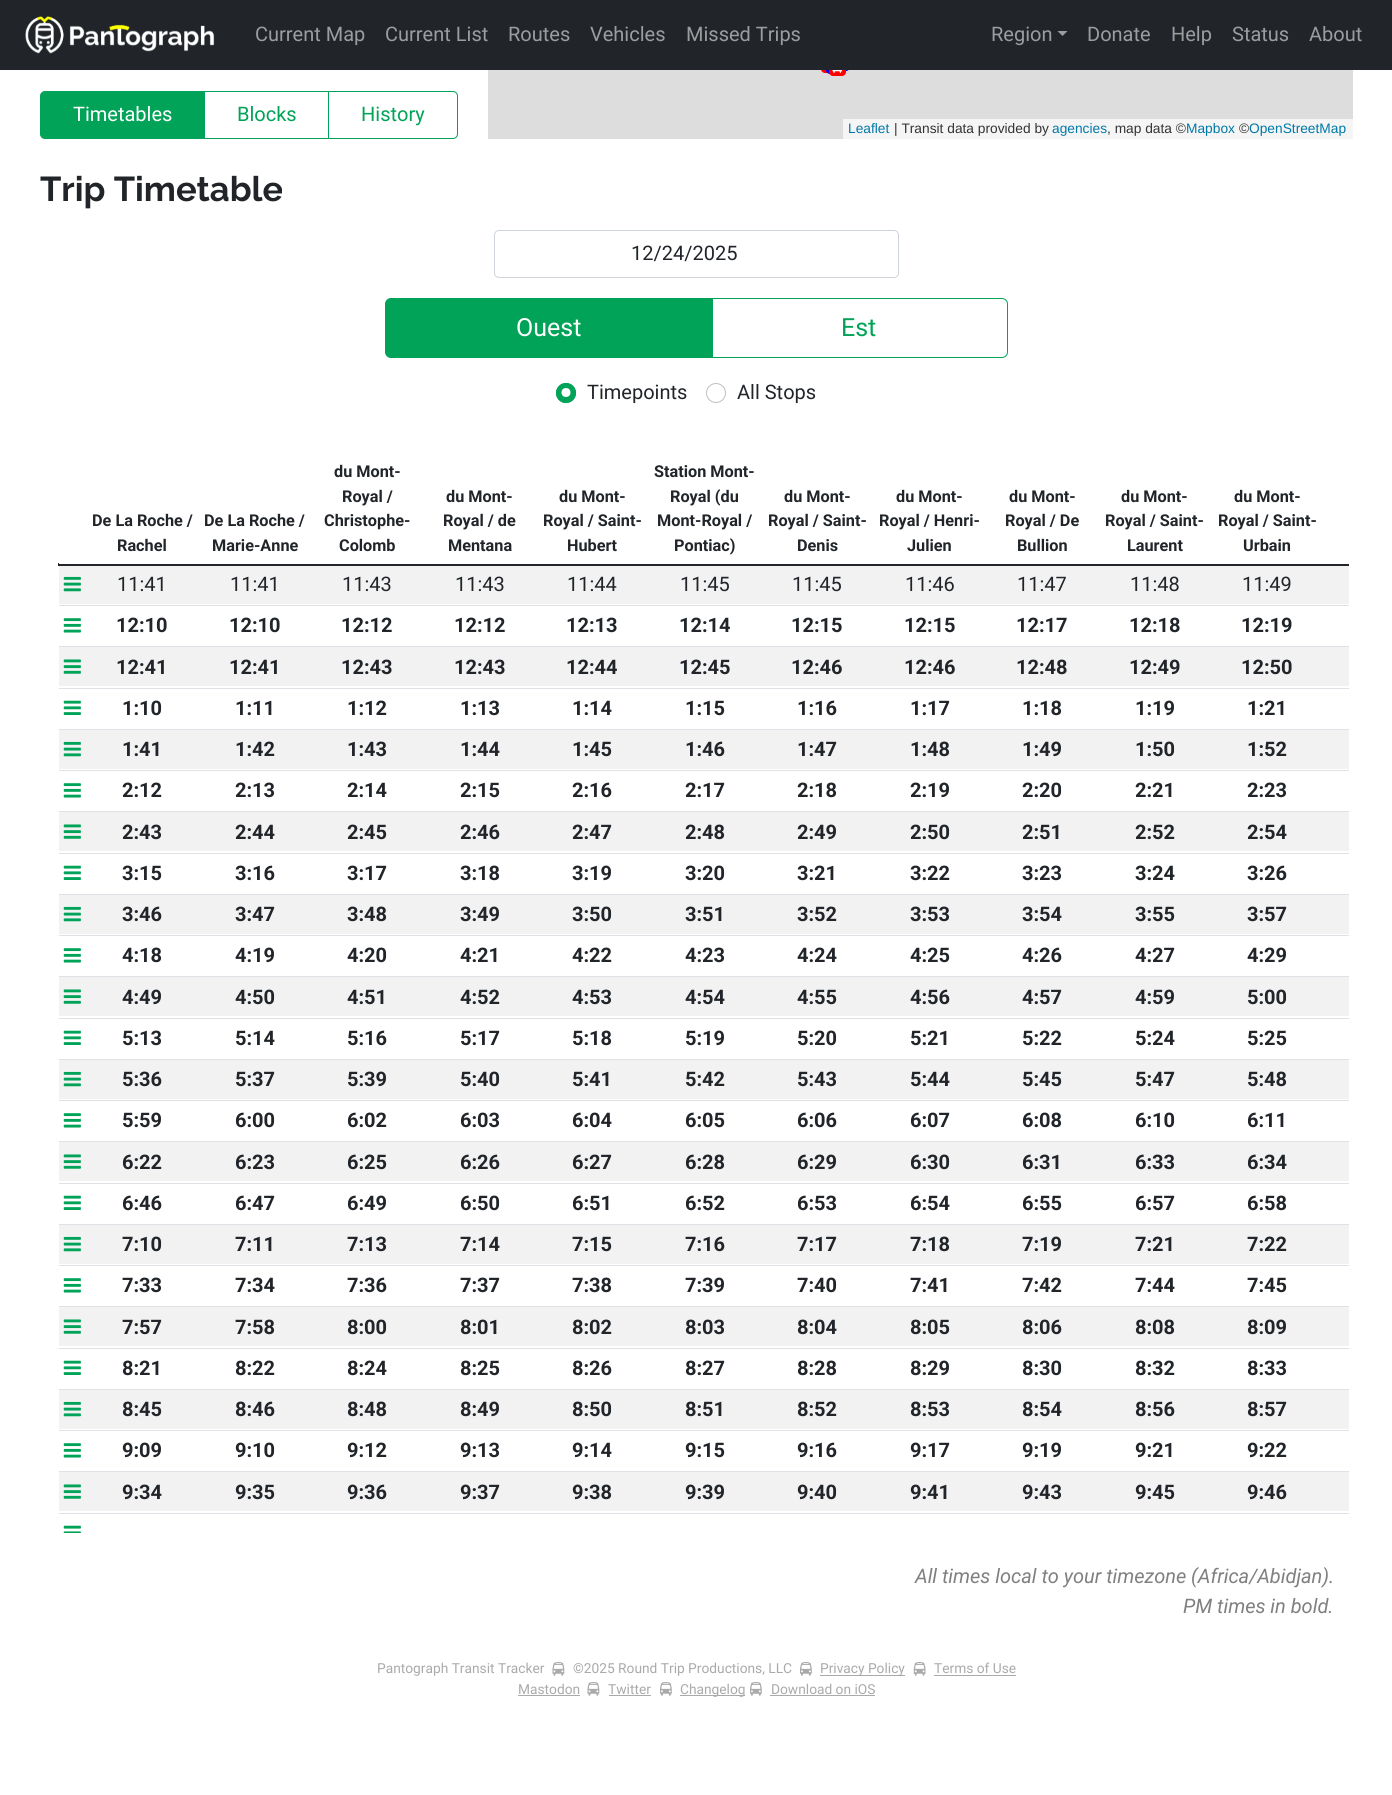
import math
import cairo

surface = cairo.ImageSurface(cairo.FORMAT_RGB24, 1392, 1795)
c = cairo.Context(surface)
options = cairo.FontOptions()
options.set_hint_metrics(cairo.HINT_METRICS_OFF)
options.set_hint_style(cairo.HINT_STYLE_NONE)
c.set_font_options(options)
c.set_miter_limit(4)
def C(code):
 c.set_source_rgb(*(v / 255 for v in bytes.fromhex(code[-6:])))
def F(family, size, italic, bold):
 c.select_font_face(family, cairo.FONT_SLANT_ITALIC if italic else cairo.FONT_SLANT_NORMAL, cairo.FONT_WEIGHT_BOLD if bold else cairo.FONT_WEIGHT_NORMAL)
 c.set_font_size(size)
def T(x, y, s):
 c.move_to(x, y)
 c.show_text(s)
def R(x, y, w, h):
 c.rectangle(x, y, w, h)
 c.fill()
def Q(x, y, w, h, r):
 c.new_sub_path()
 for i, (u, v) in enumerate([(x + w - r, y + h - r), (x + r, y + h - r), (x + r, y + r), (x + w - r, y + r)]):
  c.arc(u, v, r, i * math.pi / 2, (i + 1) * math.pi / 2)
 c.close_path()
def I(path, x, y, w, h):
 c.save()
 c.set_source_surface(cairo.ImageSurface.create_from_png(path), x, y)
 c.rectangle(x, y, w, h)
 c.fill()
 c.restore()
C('ffffff')
c.paint()
C('dddddd')
R(488,70,865,69)
C('0000ff')
Q(833,54,17,17,4)
c.fill()
C('ff0000')
Q(821,55,18,18,4)
c.fill()
C('0000ff')
Q(826,56,18,18,4)
c.fill()
C('ff0000')
Q(829,59,17,17,4)
c.fill()
C('212529')
R(0,0,1392,70)
I('1.png',25,16,190,38)
F('Roboto',20,0,0)
C('9b9d9f')
T(255,41,'Current Map')
T(385,41,'Current List')
T(508,41,'Routes')
T(590,41,'Vehicles')
T(686,41,'Missed Trips')
T(991,41,'Region')
c.new_path()
c.move_to(1057.5,31)
c.line_to(1067.5,31)
c.line_to(1062.5,36)
c.close_path()
c.fill()
T(1087,41,'Donate')
T(1171,41,'Help')
T(1232,41,'Status')
T(1309,41,'About')
C('00a357')
c.new_path()
c.move_to(45,91.5)
c.line_to(204.5,91.5)
c.line_to(204.5,138.5)
c.line_to(45,138.5)
c.curve_to(42.5,138.5,40.5,136.5,40.5,134)
c.line_to(40.5,96)
c.curve_to(40.5,93.5,42.5,91.5,45,91.5)
c.close_path()
c.fill_preserve()
c.set_line_width(1)
c.stroke()
C('ffffff')
T(73,121,'Timetables')
c.rectangle(204.5,91.5,124,47)
C('00a357')
c.stroke()
T(237,121,'Blocks')
c.new_path()
c.move_to(328.5,91.5)
c.line_to(453,91.5)
c.curve_to(455.5,91.5,457.5,93.5,457.5,96)
c.line_to(457.5,134)
c.curve_to(457.5,136.5,455.5,138.5,453,138.5)
c.line_to(328.5,138.5)
c.close_path()
c.stroke()
T(361,121,'History')
I('2.png',832,70,11,3)
C('f5f5f5')
R(843,119,510,20)
F('Liberation Sans',13.75,0,0)
C('0078a8')
T(848,133,'Leaflet')
C('333333')
T(894,133,'| Transit data provided by')
C('0078a8')
T(1052,133,'agencies')
C('333333')
T(1107,133,', map data ©')
C('0078a8')
T(1186,133,'Mapbox')
C('333333')
T(1239,133,'©')
C('0078a8')
T(1249,133,'OpenStreetMap')
F('Raleway Thin',34.5,0,0)
C('212529')
T(40,201,'Trip Timetable')
Q(494.5,230.5,404,47,4.5)
C('ced4da')
c.stroke()
F('Roboto',20,0,0)
C('212529')
T(631,260,'12/24/2025')
C('00a357')
c.new_path()
c.move_to(391,298.5)
c.line_to(712.5,298.5)
c.line_to(712.5,357.5)
c.line_to(391,357.5)
c.curve_to(388,357.5,385.5,355,385.5,352)
c.line_to(385.5,304)
c.curve_to(385.5,301,388,298.5,391,298.5)
c.close_path()
c.fill_preserve()
c.stroke()
F('Roboto',25,0,0)
C('ffffff')
T(516,336,'Ouest')
c.new_path()
c.move_to(711.5,298.5)
c.line_to(1002,298.5)
c.curve_to(1005,298.5,1007.5,301,1007.5,304)
c.line_to(1007.5,352)
c.curve_to(1007.5,355,1005,357.5,1002,357.5)
c.line_to(711.5,357.5)
c.close_path()
C('00a357')
c.stroke()
T(841,336,'Est')
c.new_path()
c.arc(566,393,10,0,2 * math.pi)
c.fill()
C('ffffff')
c.arc(566,392.5,4.5,0,2 * math.pi)
c.fill()
c.arc(566,393,9.5,0,2 * math.pi)
C('00a357')
c.stroke()
F('Roboto',20,0,0)
C('212529')
T(587,399,'Timepoints')
c.new_path()
c.arc(716,393,9.5,0,2 * math.pi)
C('bfbfbf')
c.stroke()
C('212529')
T(737,399,'All Stops')
R(58,563,1291,3)
C('ffffff')
R(59,563,1290,1)
F('Roboto',16.25,0,1)
C('212529')
T(92,526,'De La Roche /')
T(117,551,'Rachel')
T(204,526,'De La Roche /')
T(212,551,'Marie-Anne')
T(334,477,'du Mont-')
T(342,502,'Royal /')
T(324,526,'Christophe-')
T(339,551,'Colomb')
T(446,502,'du Mont-')
T(443,526,'Royal / de')
T(448,551,'Mentana')
T(559,502,'du Mont-')
T(543,526,'Royal / Saint-')
T(567,551,'Hubert')
T(654,477,'Station Mont-')
T(670,502,'Royal (du')
T(657,526,'Mont-Royal /')
T(674,551,'Pontiac)')
T(784,502,'du Mont-')
T(768,526,'Royal / Saint-')
T(797,551,'Denis')
T(896,502,'du Mont-')
T(879,526,'Royal / Henri-')
T(907,551,'Julien')
T(1009,502,'du Mont-')
T(1005,526,'Royal / De')
T(1017,551,'Bullion')
T(1121,502,'du Mont-')
T(1105,526,'Royal / Saint-')
T(1127,551,'Laurent')
T(1234,502,'du Mont-')
T(1218,526,'Royal / Saint-')
T(1243,551,'Urbain')
C('f2f2f2')
R(59,566,1290,38)
I('3.png',63,576,18,16)
F('Roboto',20,0,0)
C('212529')
T(117,591,'11:41')
T(230,591,'11:41')
T(342,591,'11:43')
T(455,591,'11:43')
T(567,591,'11:44')
T(680,591,'11:45')
T(792,591,'11:45')
T(905,591,'11:46')
T(1017,591,'11:47')
T(1130,591,'11:48')
T(1242,591,'11:49')
C('dee2e6')
R(59,605,1290,1)
I('4.png',63,618,18,15)
F('Roboto',20,0,1)
C('212529')
T(116,632,'12:10')
T(229,632,'12:10')
T(341,632,'12:12')
T(454,632,'12:12')
T(566,632,'12:13')
T(679,632,'12:14')
T(791,632,'12:15')
T(904,632,'12:15')
T(1016,632,'12:17')
T(1129,632,'12:18')
T(1241,632,'12:19')
C('dee2e6')
R(59,646,1290,1)
C('f2f2f2')
R(59,647,1290,39)
I('5.png',63,659,18,15)
C('212529')
T(116,674,'12:41')
T(229,674,'12:41')
T(341,674,'12:43')
T(454,674,'12:43')
T(566,674,'12:44')
T(679,674,'12:45')
T(791,674,'12:46')
T(904,674,'12:46')
T(1016,674,'12:48')
T(1129,674,'12:49')
T(1241,674,'12:50')
C('dee2e6')
R(59,688,1290,1)
I('6.png',63,700,18,15)
C('212529')
T(122,715,'1:10')
T(235,715,'1:11')
T(347,715,'1:12')
T(460,715,'1:13')
T(572,715,'1:14')
T(685,715,'1:15')
T(797,715,'1:16')
T(910,715,'1:17')
T(1022,715,'1:18')
T(1135,715,'1:19')
T(1247,715,'1:21')
C('dee2e6')
R(59,729,1290,1)
C('f2f2f2')
R(59,730,1290,39)
I('3.png',63,741,18,16)
C('212529')
T(122,756,'1:41')
T(235,756,'1:42')
T(347,756,'1:43')
T(460,756,'1:44')
T(572,756,'1:45')
T(685,756,'1:46')
T(797,756,'1:47')
T(910,756,'1:48')
T(1022,756,'1:49')
T(1135,756,'1:50')
T(1247,756,'1:52')
C('dee2e6')
R(59,770,1290,1)
I('4.png',63,783,18,15)
C('212529')
T(122,797,'2:12')
T(235,797,'2:13')
T(347,797,'2:14')
T(460,797,'2:15')
T(572,797,'2:16')
T(685,797,'2:17')
T(797,797,'2:18')
T(910,797,'2:19')
T(1022,797,'2:20')
T(1135,797,'2:21')
T(1247,797,'2:23')
C('dee2e6')
R(59,811,1290,1)
C('f2f2f2')
R(59,812,1290,39)
I('5.png',63,824,18,15)
C('212529')
T(122,839,'2:43')
T(235,839,'2:44')
T(347,839,'2:45')
T(460,839,'2:46')
T(572,839,'2:47')
T(685,839,'2:48')
T(797,839,'2:49')
T(910,839,'2:50')
T(1022,839,'2:51')
T(1135,839,'2:52')
T(1247,839,'2:54')
C('dee2e6')
R(59,853,1290,1)
I('6.png',63,865,18,15)
C('212529')
T(122,880,'3:15')
T(235,880,'3:16')
T(347,880,'3:17')
T(460,880,'3:18')
T(572,880,'3:19')
T(685,880,'3:20')
T(797,880,'3:21')
T(910,880,'3:22')
T(1022,880,'3:23')
T(1135,880,'3:24')
T(1247,880,'3:26')
C('dee2e6')
R(59,894,1290,1)
C('f2f2f2')
R(59,895,1290,39)
I('3.png',63,906,18,16)
C('212529')
T(122,921,'3:46')
T(235,921,'3:47')
T(347,921,'3:48')
T(460,921,'3:49')
T(572,921,'3:50')
T(685,921,'3:51')
T(797,921,'3:52')
T(910,921,'3:53')
T(1022,921,'3:54')
T(1135,921,'3:55')
T(1247,921,'3:57')
C('dee2e6')
R(59,935,1290,1)
I('4.png',63,948,18,15)
C('212529')
T(122,962,'4:18')
T(235,962,'4:19')
T(347,962,'4:20')
T(460,962,'4:21')
T(572,962,'4:22')
T(685,962,'4:23')
T(797,962,'4:24')
T(910,962,'4:25')
T(1022,962,'4:26')
T(1135,962,'4:27')
T(1247,962,'4:29')
C('dee2e6')
R(59,976,1290,1)
C('f2f2f2')
R(59,977,1290,39)
I('5.png',63,989,18,15)
C('212529')
T(122,1004,'4:49')
T(235,1004,'4:50')
T(347,1004,'4:51')
T(460,1004,'4:52')
T(572,1004,'4:53')
T(685,1004,'4:54')
T(797,1004,'4:55')
T(910,1004,'4:56')
T(1022,1004,'4:57')
T(1135,1004,'4:59')
T(1247,1004,'5:00')
C('dee2e6')
R(59,1018,1290,1)
I('6.png',63,1030,18,15)
C('212529')
T(122,1045,'5:13')
T(235,1045,'5:14')
T(347,1045,'5:16')
T(460,1045,'5:17')
T(572,1045,'5:18')
T(685,1045,'5:19')
T(797,1045,'5:20')
T(910,1045,'5:21')
T(1022,1045,'5:22')
T(1135,1045,'5:24')
T(1247,1045,'5:25')
C('dee2e6')
R(59,1059,1290,1)
C('f2f2f2')
R(59,1060,1290,39)
I('3.png',63,1071,18,16)
C('212529')
T(122,1086,'5:36')
T(235,1086,'5:37')
T(347,1086,'5:39')
T(460,1086,'5:40')
T(572,1086,'5:41')
T(685,1086,'5:42')
T(797,1086,'5:43')
T(910,1086,'5:44')
T(1022,1086,'5:45')
T(1135,1086,'5:47')
T(1247,1086,'5:48')
C('dee2e6')
R(59,1100,1290,1)
I('4.png',63,1113,18,15)
C('212529')
T(122,1127,'5:59')
T(235,1127,'6:00')
T(347,1127,'6:02')
T(460,1127,'6:03')
T(572,1127,'6:04')
T(685,1127,'6:05')
T(797,1127,'6:06')
T(910,1127,'6:07')
T(1022,1127,'6:08')
T(1135,1127,'6:10')
T(1247,1127,'6:11')
C('dee2e6')
R(59,1141,1290,1)
C('f2f2f2')
R(59,1142,1290,39)
I('5.png',63,1154,18,15)
C('212529')
T(122,1169,'6:22')
T(235,1169,'6:23')
T(347,1169,'6:25')
T(460,1169,'6:26')
T(572,1169,'6:27')
T(685,1169,'6:28')
T(797,1169,'6:29')
T(910,1169,'6:30')
T(1022,1169,'6:31')
T(1135,1169,'6:33')
T(1247,1169,'6:34')
C('dee2e6')
R(59,1183,1290,1)
I('6.png',63,1195,18,15)
C('212529')
T(122,1210,'6:46')
T(235,1210,'6:47')
T(347,1210,'6:49')
T(460,1210,'6:50')
T(572,1210,'6:51')
T(685,1210,'6:52')
T(797,1210,'6:53')
T(910,1210,'6:54')
T(1022,1210,'6:55')
T(1135,1210,'6:57')
T(1247,1210,'6:58')
C('dee2e6')
R(59,1224,1290,1)
C('f2f2f2')
R(59,1225,1290,39)
I('3.png',63,1236,18,16)
C('212529')
T(122,1251,'7:10')
T(235,1251,'7:11')
T(347,1251,'7:13')
T(460,1251,'7:14')
T(572,1251,'7:15')
T(685,1251,'7:16')
T(797,1251,'7:17')
T(910,1251,'7:18')
T(1022,1251,'7:19')
T(1135,1251,'7:21')
T(1247,1251,'7:22')
C('dee2e6')
R(59,1265,1290,1)
I('4.png',63,1278,18,15)
C('212529')
T(122,1292,'7:33')
T(235,1292,'7:34')
T(347,1292,'7:36')
T(460,1292,'7:37')
T(572,1292,'7:38')
T(685,1292,'7:39')
T(797,1292,'7:40')
T(910,1292,'7:41')
T(1022,1292,'7:42')
T(1135,1292,'7:44')
T(1247,1292,'7:45')
C('dee2e6')
R(59,1306,1290,1)
C('f2f2f2')
R(59,1307,1290,39)
I('5.png',63,1319,18,15)
C('212529')
T(122,1334,'7:57')
T(235,1334,'7:58')
T(347,1334,'8:00')
T(460,1334,'8:01')
T(572,1334,'8:02')
T(685,1334,'8:03')
T(797,1334,'8:04')
T(910,1334,'8:05')
T(1022,1334,'8:06')
T(1135,1334,'8:08')
T(1247,1334,'8:09')
C('dee2e6')
R(59,1348,1290,1)
I('6.png',63,1360,18,15)
C('212529')
T(122,1375,'8:21')
T(235,1375,'8:22')
T(347,1375,'8:24')
T(460,1375,'8:25')
T(572,1375,'8:26')
T(685,1375,'8:27')
T(797,1375,'8:28')
T(910,1375,'8:29')
T(1022,1375,'8:30')
T(1135,1375,'8:32')
T(1247,1375,'8:33')
C('dee2e6')
R(59,1389,1290,1)
C('f2f2f2')
R(59,1390,1290,39)
I('3.png',63,1401,18,16)
C('212529')
T(122,1416,'8:45')
T(235,1416,'8:46')
T(347,1416,'8:48')
T(460,1416,'8:49')
T(572,1416,'8:50')
T(685,1416,'8:51')
T(797,1416,'8:52')
T(910,1416,'8:53')
T(1022,1416,'8:54')
T(1135,1416,'8:56')
T(1247,1416,'8:57')
C('dee2e6')
R(59,1430,1290,1)
I('4.png',63,1443,18,15)
C('212529')
T(122,1457,'9:09')
T(235,1457,'9:10')
T(347,1457,'9:12')
T(460,1457,'9:13')
T(572,1457,'9:14')
T(685,1457,'9:15')
T(797,1457,'9:16')
T(910,1457,'9:17')
T(1022,1457,'9:19')
T(1135,1457,'9:21')
T(1247,1457,'9:22')
C('dee2e6')
R(59,1471,1290,1)
C('f2f2f2')
R(59,1472,1290,39)
I('5.png',63,1484,18,15)
C('212529')
T(122,1499,'9:34')
T(235,1499,'9:35')
T(347,1499,'9:36')
T(460,1499,'9:37')
T(572,1499,'9:38')
T(685,1499,'9:39')
T(797,1499,'9:40')
T(910,1499,'9:41')
T(1022,1499,'9:43')
T(1135,1499,'9:45')
T(1247,1499,'9:46')
C('dee2e6')
R(59,1513,1290,1)
I('7.png',63,1525,18,8)
F('Roboto',20,1,0)
C('808080')
T(915,1583,'All times local to your timezone (Africa/Abidjan).')
T(1183,1613,'PM times in bold.')
F('Roboto',13.75,0,0)
C('aaaaaa')
T(377,1673,'Pantograph Transit Tracker')
I('8.png',552,1662,13,14)
T(573,1673,'©2025 Round Trip Productions, LLC')
I('9.png',800,1662,12,14)
R(820,1675,85,1)
T(820,1673,'Privacy Policy')
I('10.png',913,1662,13,14)
T(934,1673,'Terms of Use')
R(934,1675,82,1)
T(518,1694,'Mastodon')
R(518,1695,62,1)
I('8.png',587,1682,13,14)
T(608,1694,'Twitter')
R(609,1695,42,1)
I('9.png',660,1682,12,14)
R(680,1695,65,1)
T(680,1694,'Changelog')
I('9.png',750,1682,12,14)
T(771,1694,'Download on iOS')
R(770,1695,105,1)
surface.write_to_png('o.png')
